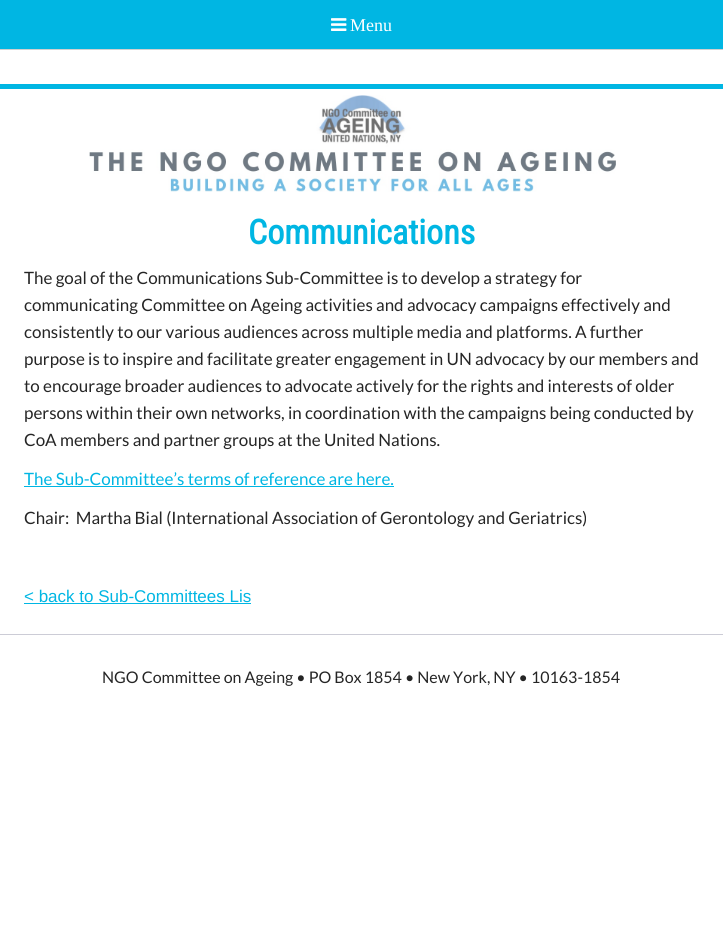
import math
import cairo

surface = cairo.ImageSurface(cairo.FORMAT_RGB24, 723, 933)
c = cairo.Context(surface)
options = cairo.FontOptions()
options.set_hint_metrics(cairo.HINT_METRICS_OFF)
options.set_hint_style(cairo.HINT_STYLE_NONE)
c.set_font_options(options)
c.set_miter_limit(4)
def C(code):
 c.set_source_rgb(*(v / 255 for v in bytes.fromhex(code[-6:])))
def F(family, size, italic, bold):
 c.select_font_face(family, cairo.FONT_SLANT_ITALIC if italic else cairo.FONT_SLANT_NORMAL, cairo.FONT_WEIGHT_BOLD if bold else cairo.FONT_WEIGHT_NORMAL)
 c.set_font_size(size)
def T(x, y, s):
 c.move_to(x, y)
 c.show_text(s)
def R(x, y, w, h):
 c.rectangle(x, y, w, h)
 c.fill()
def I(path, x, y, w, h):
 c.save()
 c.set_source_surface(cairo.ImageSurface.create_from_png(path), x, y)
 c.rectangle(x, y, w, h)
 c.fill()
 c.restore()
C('ffffff')
c.paint()
C('00b6e3')
R(0,0,723,49)
C('d0d0d0')
R(0,49,723,1)
I('1.png',331,18,16,13)
F('Liberation Serif',18,0,0)
C('ffffff')
T(350,31,'Menu')
C('00b6e3')
R(0,84,723,5)
I('2.png',89,95,527,97)
F('Roboto Condensed',34,0,1)
T(248,244,'Communications')
F('Lato',17,0,0)
C('252525')
T(24,284,'The goal of the Communications Sub-Committee is to develop a strategy for')
T(24,311,'communicating Committee on Ageing activities and advocacy campaigns effectively and')
T(24,338,'consistently to our various audiences across multiple media and platforms. A further')
T(24,365,'purpose is to inspire and facilitate greater engagement in UN advocacy by our members and')
T(24,392,'to encourage broader audiences to advocate actively for the rights and interests of older')
T(24,419,'persons within their own networks, in coordination with the campaigns being conducted by')
T(24,446,'CoA members and partner groups at the United Nations.')
C('00b6e3')
T(24,485,'The Sub-Committee’s terms of reference are here.')
R(24,486,370,1)
C('252525')
T(24,524,'Chair:  Martha Bial (International Association of Gerontology and Geriatrics)')
F('Liberation Sans',17,0,0)
C('00b6e3')
T(24,602,'< back to Sub-Committees Lis')
R(24,603,227,1)
C('ccccd6')
R(0,634,723,1)
F('Lato',16,0,0)
C('252525')
T(102,683,'NGO Committee on Ageing • PO Box 1854 • New York, NY • 10163-1854')
surface.write_to_png('o.png')
